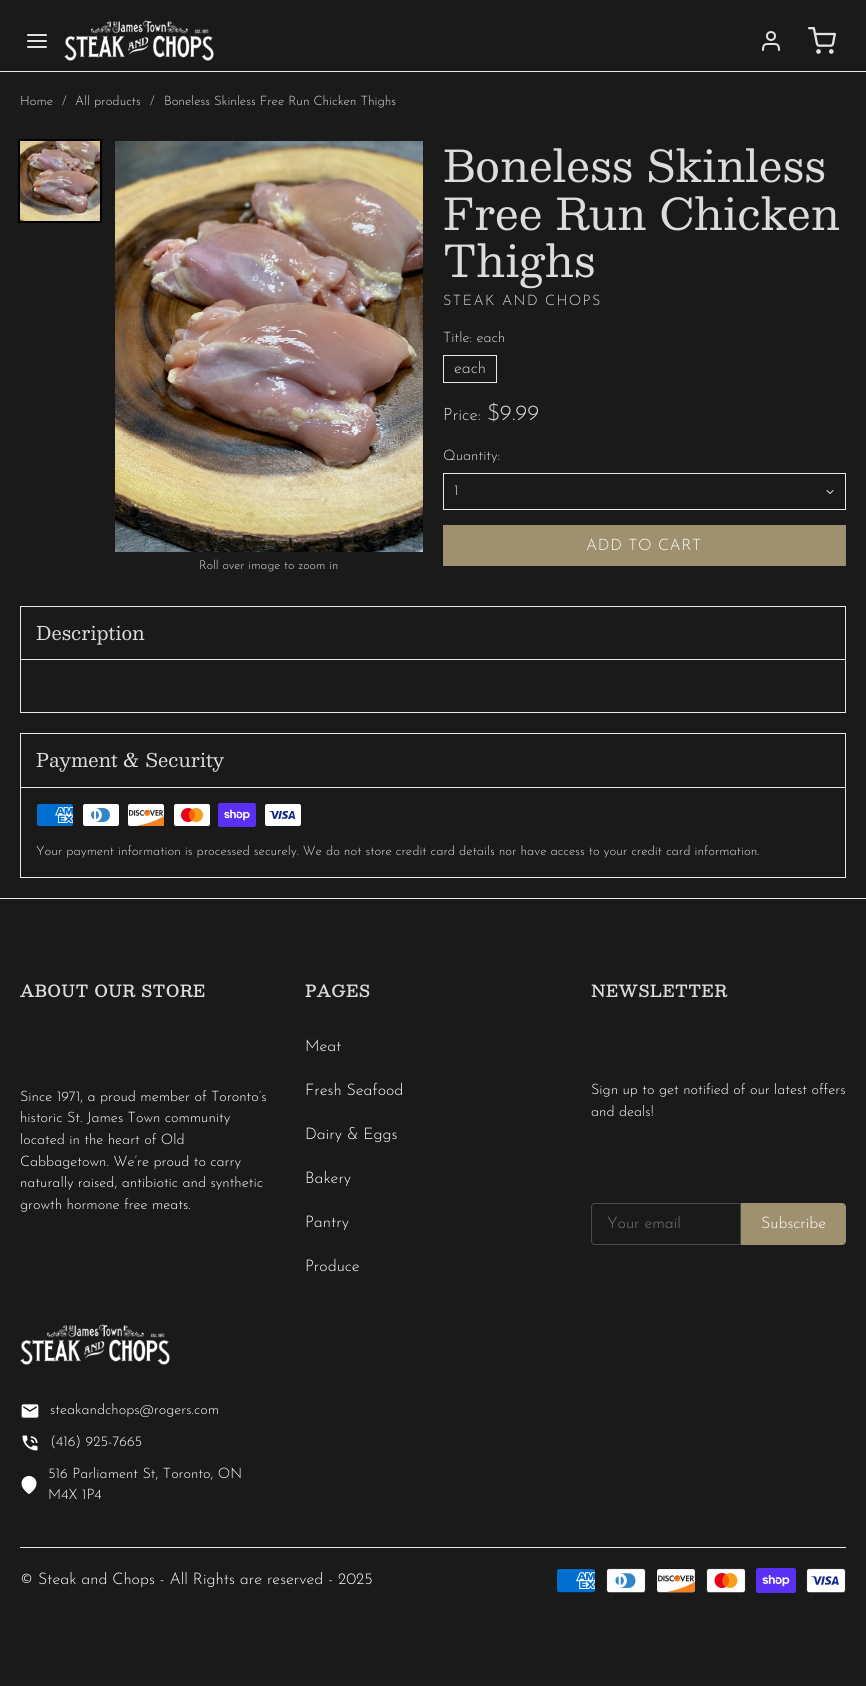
import math
import cairo

surface = cairo.ImageSurface(cairo.FORMAT_RGB24, 866, 1686)
c = cairo.Context(surface)
options = cairo.FontOptions()
options.set_hint_metrics(cairo.HINT_METRICS_OFF)
options.set_hint_style(cairo.HINT_STYLE_NONE)
c.set_font_options(options)
c.set_miter_limit(4)
def C(code):
 c.set_source_rgb(*(v / 255 for v in bytes.fromhex(code[-6:])))
def F(family, size, italic, bold):
 c.select_font_face(family, cairo.FONT_SLANT_ITALIC if italic else cairo.FONT_SLANT_NORMAL, cairo.FONT_WEIGHT_BOLD if bold else cairo.FONT_WEIGHT_NORMAL)
 c.set_font_size(size)
def T(x, y, s):
 c.move_to(x, y)
 c.show_text(s)
def L(x, y, s, letter, word):
 c.move_to(x, y)
 for ch in s:
  c.show_text(ch)
  c.rel_move_to(letter + word * (ch == ' '), 0)
def R(x, y, w, h):
 c.rectangle(x, y, w, h)
 c.fill()
def I(path, x, y, w, h):
 c.save()
 c.set_source_surface(cairo.ImageSurface.create_from_png(path), x, y)
 c.rectangle(x, y, w, h)
 c.fill()
 c.restore()
C('1a1a1a')
c.paint()
C('e8e8e8')
R(0,71,866,1)
c.new_path()
c.move_to(28,41)
c.line_to(46,41)
c.move_to(28,35)
c.line_to(46,35)
c.move_to(28,47)
c.line_to(46,47)
C('e2e2e2')
c.set_line_cap(cairo.LINE_CAP_ROUND)
c.set_line_join(cairo.LINE_JOIN_ROUND)
c.stroke()
I('1.png',64,20,150,41)
c.arc(771,36,4,0,2 * math.pi)
c.set_line_cap(cairo.LINE_CAP_BUTT)
c.set_line_join(cairo.LINE_JOIN_MITER)
c.stroke()
c.new_path()
c.move_to(779,50)
c.curve_to(779,43.5,776.5,44,771,44)
c.curve_to(765.5,44,763,43.5,763,50)
c.set_line_cap(cairo.LINE_CAP_ROUND)
c.set_line_join(cairo.LINE_JOIN_ROUND)
c.stroke()
I('2.png',808,27,28,27)
F('Josefin Sans Light',12.95,0,0)
C('dcdcdc')
T(20,105,'Home')
T(62,105,'/')
T(75,105,'All products')
T(150,105,'/')
T(164,105,'Boneless Skinless Free Run Chicken Thighs')
F('Besley',43.25,0,0)
T(443,182,'Boneless Skinless')
T(443,230,'Free Run Chicken')
T(443,277,'Thighs')
F('Josefin Sans Light',14.4,0,0)
L(443,305,'STEAK AND CHOPS',1.5,0)
T(443,342,'Title: each')
c.rectangle(443.5,355.5,53,27)
C('e8e8e8')
c.set_line_width(1)
c.set_line_cap(cairo.LINE_CAP_BUTT)
c.set_line_join(cairo.LINE_JOIN_MITER)
c.stroke()
F('Josefin Sans Light',16,0,0)
C('dcdcdc')
T(454,373,'each')
F('Josefin Sans Light',17,0,0)
T(443,420,'Price:')
F('Josefin Sans Light',22.5,0,0)
T(487,420,'$9.99')
F('Josefin Sans Light',14.4,0,0)
T(443,460,'Quantity:')
c.rectangle(443.5,473.5,402,36)
C('e8e8e8')
c.stroke()
C('dcdcdc')
T(454,495,'1')
c.new_path()
c.move_to(827,490.5)
c.line_to(830,493.5)
c.line_to(833,490.5)
c.set_line_cap(cairo.LINE_CAP_ROUND)
c.set_line_join(cairo.LINE_JOIN_ROUND)
c.stroke()
C('9f9070')
R(443,525,403,41)
F('Josefin Sans Light',15.75,0,0)
C('ffffff')
L(586,550,'ADD TO CART',.75,0)
c.rectangle(19,140,82,82)
C('000000')
c.set_line_width(2)
c.set_line_cap(cairo.LINE_CAP_BUTT)
c.set_line_join(cairo.LINE_JOIN_MITER)
c.stroke()
I('3.png',20,141,80,80)
I('4.png',115,141,308,411)
F('Josefin Sans Light',12.25,0,0)
C('dcdcdc')
T(199,569,'Roll over image to zoom in')
c.rectangle(20.5,606.5,825,106)
C('e8e8e8')
c.set_line_width(1)
c.stroke()
R(21,659,824,1)
F('Besley',18.75,0,0)
C('dcdcdc')
T(36,640,'Description')
c.rectangle(20.5,733.5,825,144)
C('e8e8e8')
c.stroke()
R(21,787,824,1)
C('dcdcdc')
T(36,767,'Payment & Security')
I('5.png',37,804,36,22)
I('6.png',83,804,36,22)
I('7.png',128,804,36,22)
I('8.png',174,804,36,22)
I('9.png',218,803,38,24)
I('10.png',265,804,36,22)
F('Josefin Sans Light',12.95,0,0)
T(36,855,'Your payment information is processed securely. We do not store credit card details nor have access to your credit card information.')
C('e8e8e8')
R(0,898,866,1)
F('Besley',16,0,1)
C('dcdcdc')
L(20,997,'ABOUT OUR STORE',.75,0)
F('Josefin Sans Light',14.4,0,0)
C('ffffff')
T(20,1101,'Since 1971, a proud member of Toronto’s')
T(20,1122,'historic St. James Town community')
T(20,1144,'located in the heart of Old')
T(20,1166,'Cabbagetown. We’re proud to carry')
T(20,1187,'naturally raised, antibiotic and synthetic')
T(20,1209,'growth hormone free meats.')
F('Besley',16,0,1)
C('dcdcdc')
L(305,997,'PAGES',.75,0)
F('Josefin Sans Light',16,0,0)
C('ffffff')
T(305,1051,'Meat')
T(305,1095,'Fresh Seafood')
T(305,1139,'Dairy & Eggs')
T(305,1183,'Bakery')
T(305,1227,'Pantry')
T(305,1271,'Produce')
F('Besley',16,0,1)
C('dcdcdc')
L(591,997,'NEWSLETTER',.75,0)
F('Josefin Sans Light',14.4,0,0)
C('ffffff')
T(591,1094,'Sign up to get notified of our latest offers')
T(591,1116,'and deals!')
c.new_path()
c.move_to(595,1203.5)
c.line_to(740.5,1203.5)
c.line_to(740.5,1244.5)
c.line_to(595,1244.5)
c.curve_to(593,1244.5,591.5,1243,591.5,1241)
c.line_to(591.5,1207)
c.curve_to(591.5,1205,593,1203.5,595,1203.5)
c.close_path()
C('484848')
c.stroke()
F('Josefin Sans Light',16,0,0)
C('757575')
T(607,1228,'Your email')
C('9f9070')
c.new_path()
c.move_to(741,1203)
c.line_to(842,1203)
c.curve_to(844,1203,846,1205,846,1207)
c.line_to(846,1241)
c.curve_to(846,1243,844,1245,842,1245)
c.line_to(741,1245)
c.close_path()
c.fill()
C('ffffff')
T(761,1228,'Subscribe')
I('11.png',20,1324,150,41)
I('12.png',21,1404,18,14)
F('Josefin Sans Light',14.4,0,0)
T(50,1414,'steakandchops@rogers.com')
I('13.png',22,1435,16,16)
T(50,1446,'(416) 925-7665')
I('14.png',21,1476,16,18)
T(48,1478,'516 Parliament St, Toronto, ON')
T(48,1499,'M4X 1P4')
C('e8e8e8')
R(20,1547,826,1)
F('Josefin Sans Light',16,0,0)
C('ffffff')
T(20,1584,'© Steak and Chops - All Rights are reserved - 2025')
I('15.png',557,1569,38,24)
I('16.png',606,1568,40,25)
I('17.png',657,1569,38,24)
I('18.png',706,1568,40,25)
I('19.png',756,1568,40,25)
I('20.png',806,1568,40,25)
surface.write_to_png('o.png')
